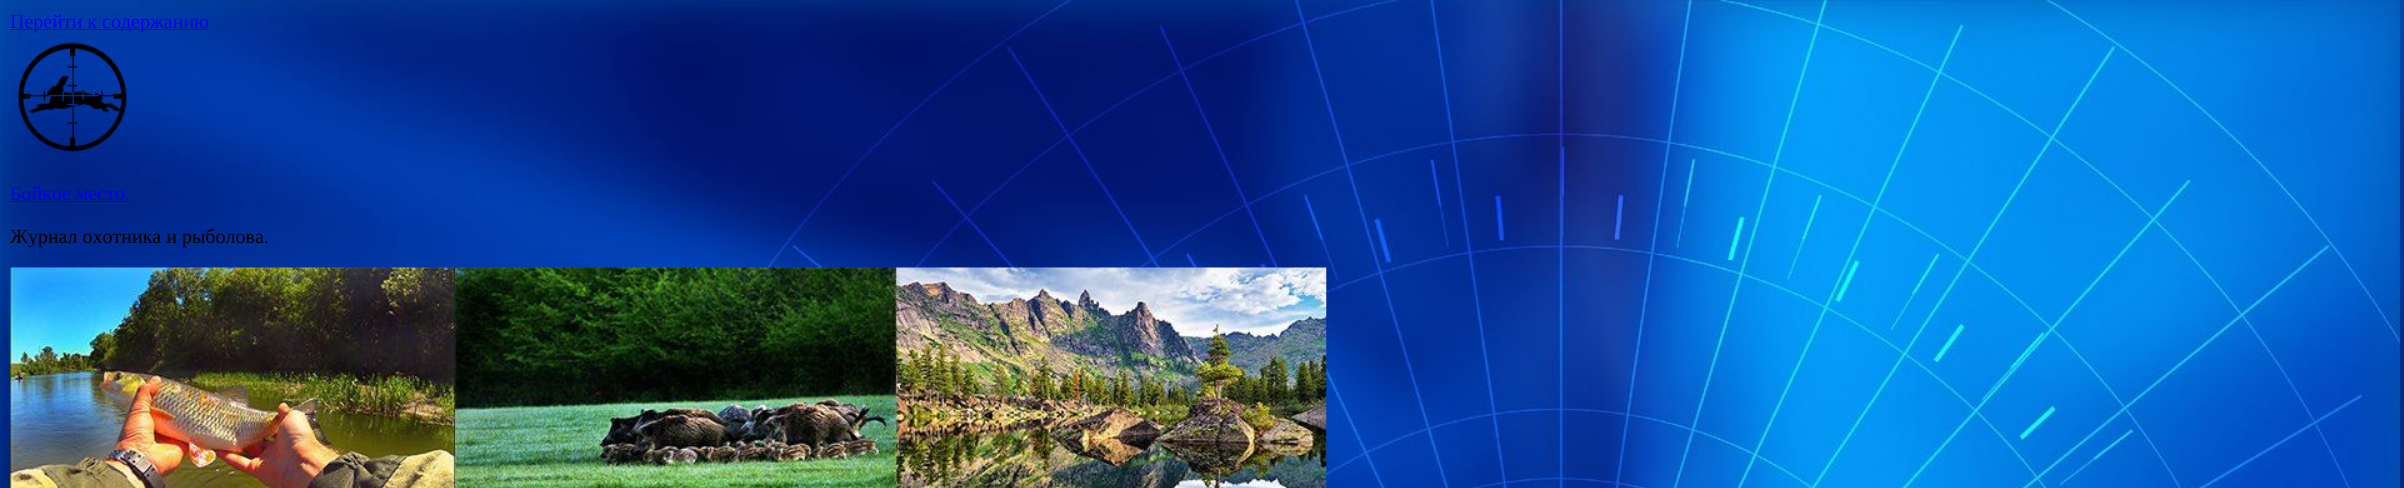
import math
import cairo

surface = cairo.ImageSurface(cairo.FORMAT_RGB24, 2404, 488)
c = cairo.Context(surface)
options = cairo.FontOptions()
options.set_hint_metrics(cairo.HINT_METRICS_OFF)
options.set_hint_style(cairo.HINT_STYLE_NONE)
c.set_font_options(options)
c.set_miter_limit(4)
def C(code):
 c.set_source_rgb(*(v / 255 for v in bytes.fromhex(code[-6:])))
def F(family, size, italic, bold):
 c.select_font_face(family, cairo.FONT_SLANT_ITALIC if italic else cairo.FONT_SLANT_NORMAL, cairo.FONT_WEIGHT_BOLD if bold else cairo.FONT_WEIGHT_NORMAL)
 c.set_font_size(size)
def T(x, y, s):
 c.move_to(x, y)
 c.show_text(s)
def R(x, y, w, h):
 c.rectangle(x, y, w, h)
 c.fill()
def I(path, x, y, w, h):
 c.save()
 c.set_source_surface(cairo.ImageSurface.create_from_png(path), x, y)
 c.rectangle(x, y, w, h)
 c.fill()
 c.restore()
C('ffffff')
c.paint()
I('1.png',0,0,2404,488)
C('0000ee')
R(10,29,199,1)
F('Liberation Serif',20,0,0)
T(10,28,'Перейти к содержанию')
I('2.png',17,42,110,110)
T(10,200,'Бойкое место.')
R(10,201,120,1)
C('000000')
T(10,243,'Журнал охотника и рыболова.')
I('3.png',10,267,1317,221)
surface.write_to_png('o.png')
